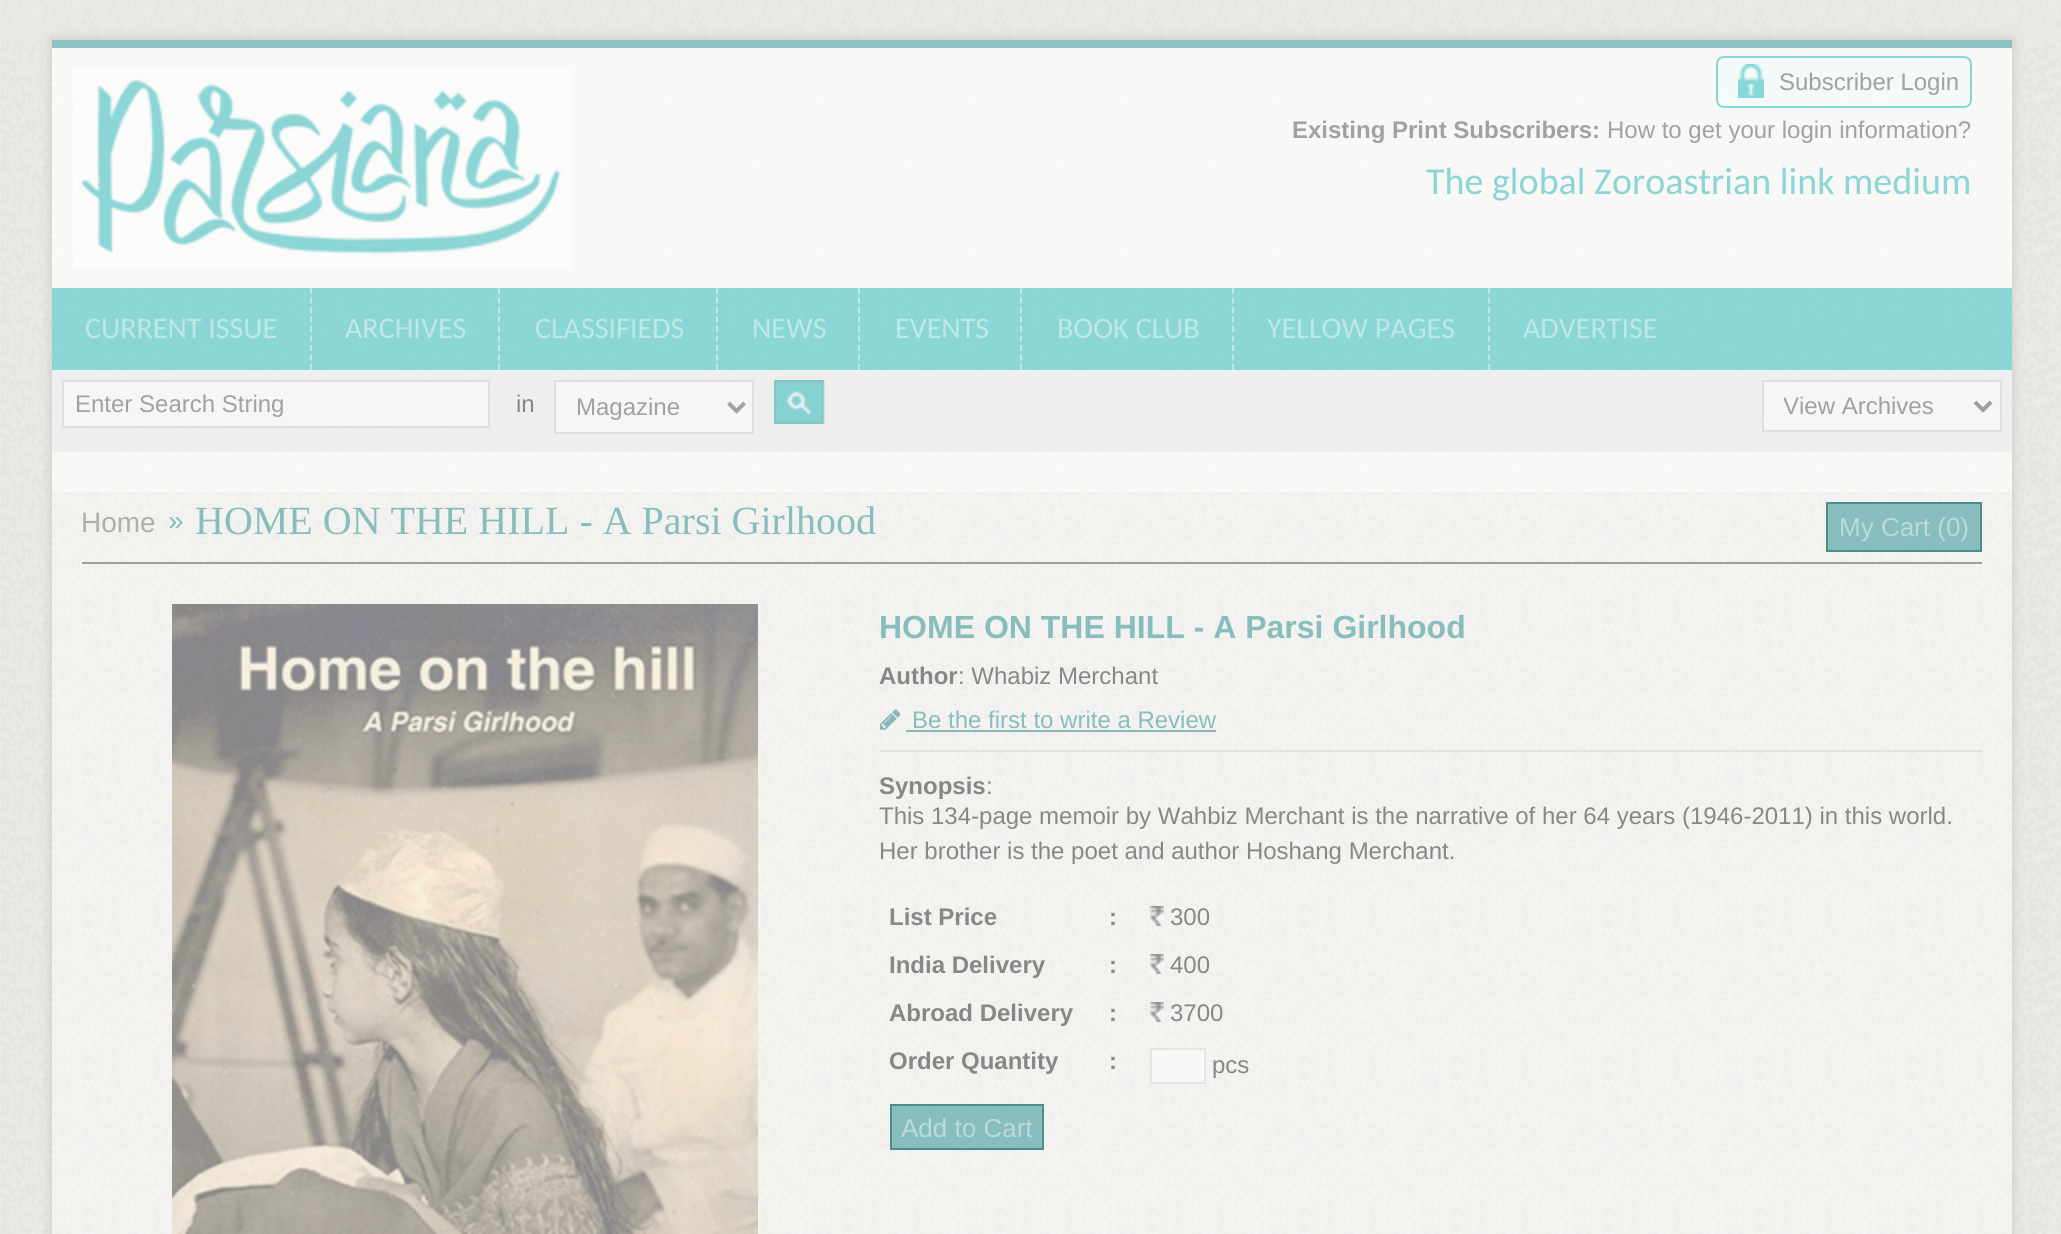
import math
import cairo

surface = cairo.ImageSurface(cairo.FORMAT_RGB24, 2061, 1234)
c = cairo.Context(surface)
options = cairo.FontOptions()
options.set_hint_metrics(cairo.HINT_METRICS_OFF)
options.set_hint_style(cairo.HINT_STYLE_NONE)
c.set_font_options(options)
c.set_miter_limit(4)
def C(code):
 c.set_source_rgb(*(v / 255 for v in bytes.fromhex(code[-6:])))
def F(family, size, italic, bold):
 c.select_font_face(family, cairo.FONT_SLANT_ITALIC if italic else cairo.FONT_SLANT_NORMAL, cairo.FONT_WEIGHT_BOLD if bold else cairo.FONT_WEIGHT_NORMAL)
 c.set_font_size(size)
def T(x, y, s):
 c.move_to(x, y)
 c.show_text(s)
def R(x, y, w, h):
 c.rectangle(x, y, w, h)
 c.fill()
def Q(x, y, w, h, r):
 c.new_sub_path()
 for i, (u, v) in enumerate([(x + w - r, y + h - r), (x + r, y + h - r), (x + r, y + r), (x + w - r, y + r)]):
  c.arc(u, v, r, i * math.pi / 2, (i + 1) * math.pi / 2)
 c.close_path()
def S(x, y, w, h, r, blur, alpha):
 c.push_group_with_content(cairo.CONTENT_ALPHA)
 c.set_operator(cairo.OPERATOR_SOURCE)
 for i in range(15, -16, -2):
  e = blur * i / 6
  if min(w, h) + 2 * e > 0:
   c.set_source_rgba(0, 0, 0, alpha * math.erfc((i - 1) / 8.5) / 2)
   Q(x - e, y - e, w + 2 * e, h + 2 * e, max(0, min(r + e + blur * .6, min(w, h) / 2 + e)))
   c.fill()
 c.mask(c.pop_group())
def I(path, x, y, w, h):
 c.save()
 c.set_source_surface(cairo.ImageSurface.create_from_png(path), x, y)
 c.rectangle(x, y, w, h)
 c.fill()
 c.restore()
C('ffffff')
c.paint()
I('1.png',0,0,2061,1234)
c.set_source_rgba(0.918,0.914,0.898,0.44)
R(2,0,2059,40)
c.save()
c.set_fill_rule(cairo.FILL_RULE_EVEN_ODD)
c.new_path()
c.move_to(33,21)
c.line_to(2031,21)
c.line_to(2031,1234)
c.line_to(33,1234)
c.close_path()
c.move_to(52,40)
c.line_to(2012,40)
c.line_to(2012,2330)
c.line_to(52,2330)
c.close_path()
c.clip()
C('999999')
S(52,40,1960,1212,0,6,.44)
c.restore()
c.set_source_rgba(1,1,1,0.44)
R(52,40,1960,412)
c.set_source_rgba(0,0.482,0.494,0.44)
R(52,40,1960,8)
I('2.png',73,68,499,200)
c.set_source_rgba(0.925,0.992,0.992,0.44)
Q(1716,56,256,52,8)
c.fill()
I('3.png',1738,64,26,34)
Q(1717,57,254,50,7)
c.set_source_rgba(0.004,0.667,0.678,0.44)
c.stroke()
F('Liberation Sans',24,0,0)
C('9ea2a2')
T(1779,90,'Subscriber Login')
F('Liberation Sans',24,0,1)
T(1292,138,'Existing Print Subscribers:')
F('Liberation Sans',24,0,0)
T(1607,138,'How to get your login information?')
F('Carlito',38,0,0)
C('8bd5d6')
T(1426,194,'The global Zoroastrian link medium')
c.set_source_rgba(0.004,0.667,0.678,0.44)
R(52,288,1960,82)
F('Carlito',30,0,0)
C('bee8e8')
T(85,338,'CURRENT ISSUE')
c.new_path()
c.move_to(311,288)
c.line_to(311,370)
c.set_dash([6,3.5])
c.stroke()
T(345,338,'ARCHIVES')
c.new_path()
c.move_to(499,288)
c.line_to(499,370)
c.stroke()
T(535,338,'CLASSIFIEDS')
c.new_path()
c.move_to(717,288)
c.line_to(717,370)
c.stroke()
T(752,338,'NEWS')
c.new_path()
c.move_to(859,288)
c.line_to(859,370)
c.stroke()
T(895,338,'EVENTS')
c.new_path()
c.move_to(1021,288)
c.line_to(1021,370)
c.stroke()
T(1057,338,'BOOK CLUB')
c.new_path()
c.move_to(1233,288)
c.line_to(1233,370)
c.stroke()
T(1267,338,'YELLOW PAGES')
c.new_path()
c.move_to(1489,288)
c.line_to(1489,370)
c.stroke()
T(1523,338,'ADVERTISE')
c.set_source_rgba(0.886,0.886,0.886,0.44)
R(52,370,1960,82)
C('f6f6f5')
c.rectangle(63,381,426,46)
c.fill_preserve()
C('dfdfde')
c.set_dash([])
c.stroke()
F('Liberation Sans',24,0,0)
C('9ea2a2')
T(75,412,'Enter Search String')
C('878786')
T(516,412,'in')
C('f6f6f5')
c.rectangle(555,381,198,52)
c.fill_preserve()
C('dfdfde')
c.stroke()
c.new_path()
c.move_to(728.5,403)
c.line_to(736.5,411)
c.line_to(744.5,403)
C('a0a09f')
c.set_line_width(4)
c.stroke()
C('9ea2a2')
T(576,415,'Magazine')
I('4.png',774,380,51,44)
C('f6f6f5')
c.rectangle(1763,381,238,50)
c.fill_preserve()
C('dfdfde')
c.set_line_width(2)
c.stroke()
c.new_path()
c.move_to(1975,402)
c.line_to(1983,410)
c.line_to(1991,402)
C('a0a09f')
c.set_line_width(4)
c.stroke()
c.save()
c.rectangle(1784,390,172,32)
c.clip()
C('9ea2a2')
T(1783,414,'View Archives')
c.restore()
c.set_source_rgba(1,1,1,0.44)
R(52,452,1960,40)
c.set_source_rgba(0.2,0.2,0.2,0.44)
R(82,562,1900,2)
F('Liberation Sans',28,0,0)
C('aeaeac')
T(81,532,'Home')
C('88bdbe')
T(168,530,'»')
F('Liberation Serif',40,0,0)
T(195,534,'HOME ON THE HILL - A Parsi Girlhood')
c.set_source_rgba(0,0.482,0.494,0.44)
R(1826,502,156,50)
c.rectangle(1827,503,154,48)
c.set_source_rgba(0,0.314,0.322,0.44)
c.set_line_width(2)
c.stroke()
F('Liberation Sans',26,0,0)
C('bcdada')
T(1839,536,'My Cart (0)')
I('5.png',172,604,586,630)
c.set_source_rgba(0.8,0.8,0.8,0.44)
R(880,750,1102,2)
F('Liberation Sans',32,0,1)
C('88bdbe')
T(879,638,'HOME ON THE HILL - A Parsi Girlhood')
F('Liberation Sans',24,0,1)
C('878786')
T(879,684,'Author')
F('Liberation Sans',24,0,0)
T(958,684,': Whabiz Merchant')
I('6.png',880,709,21,21)
C('88bdbe')
T(912,728,'Be the first to write a Review')
c.set_source_rgba(0,0.443,0.455,0.44)
R(906,730,6,2)
R(912,730,304,2)
F('Liberation Sans',24,0,1)
C('878786')
T(879,794,'Synopsis')
F('Liberation Sans',24,0,0)
T(986,794,':')
T(879,824,'This 134-page memoir by Wahbiz Merchant is the narrative of her 64 years (1946-2011) in this world.')
T(879,859,'Her brother is the poet and author Hoshang Merchant.')
F('Liberation Sans',24,0,1)
T(889,925,'List Price')
T(1109,925,':')
I('7.png',1150,906,14,20)
F('Liberation Sans',24,0,0)
T(1170,925,'300')
F('Liberation Sans',24,0,1)
T(889,973,'India Delivery')
T(1109,973,':')
I('8.png',1150,954,14,20)
F('Liberation Sans',24,0,0)
T(1170,973,'400')
F('Liberation Sans',24,0,1)
T(889,1021,'Abroad Delivery')
T(1109,1021,':')
I('9.png',1150,1002,14,20)
F('Liberation Sans',24,0,0)
T(1170,1021,'3700')
F('Liberation Sans',24,0,1)
T(889,1069,'Order Quantity')
T(1109,1069,':')
c.set_source_rgba(1,1,1,0.44)
R(1150,1048,56,36)
c.rectangle(1151,1049,54,34)
c.set_source_rgba(0.8,0.8,0.8,0.44)
c.stroke()
F('Liberation Sans',24,0,0)
C('878786')
T(1212,1073,'pcs')
c.set_source_rgba(0,0.482,0.494,0.44)
R(890,1104,154,46)
c.rectangle(891,1105,152,44)
c.set_source_rgba(0,0.314,0.322,0.44)
c.stroke()
F('Liberation Sans',26,0,0)
C('bcdada')
T(901,1137,'Add to Cart')
surface.write_to_png('o.png')
